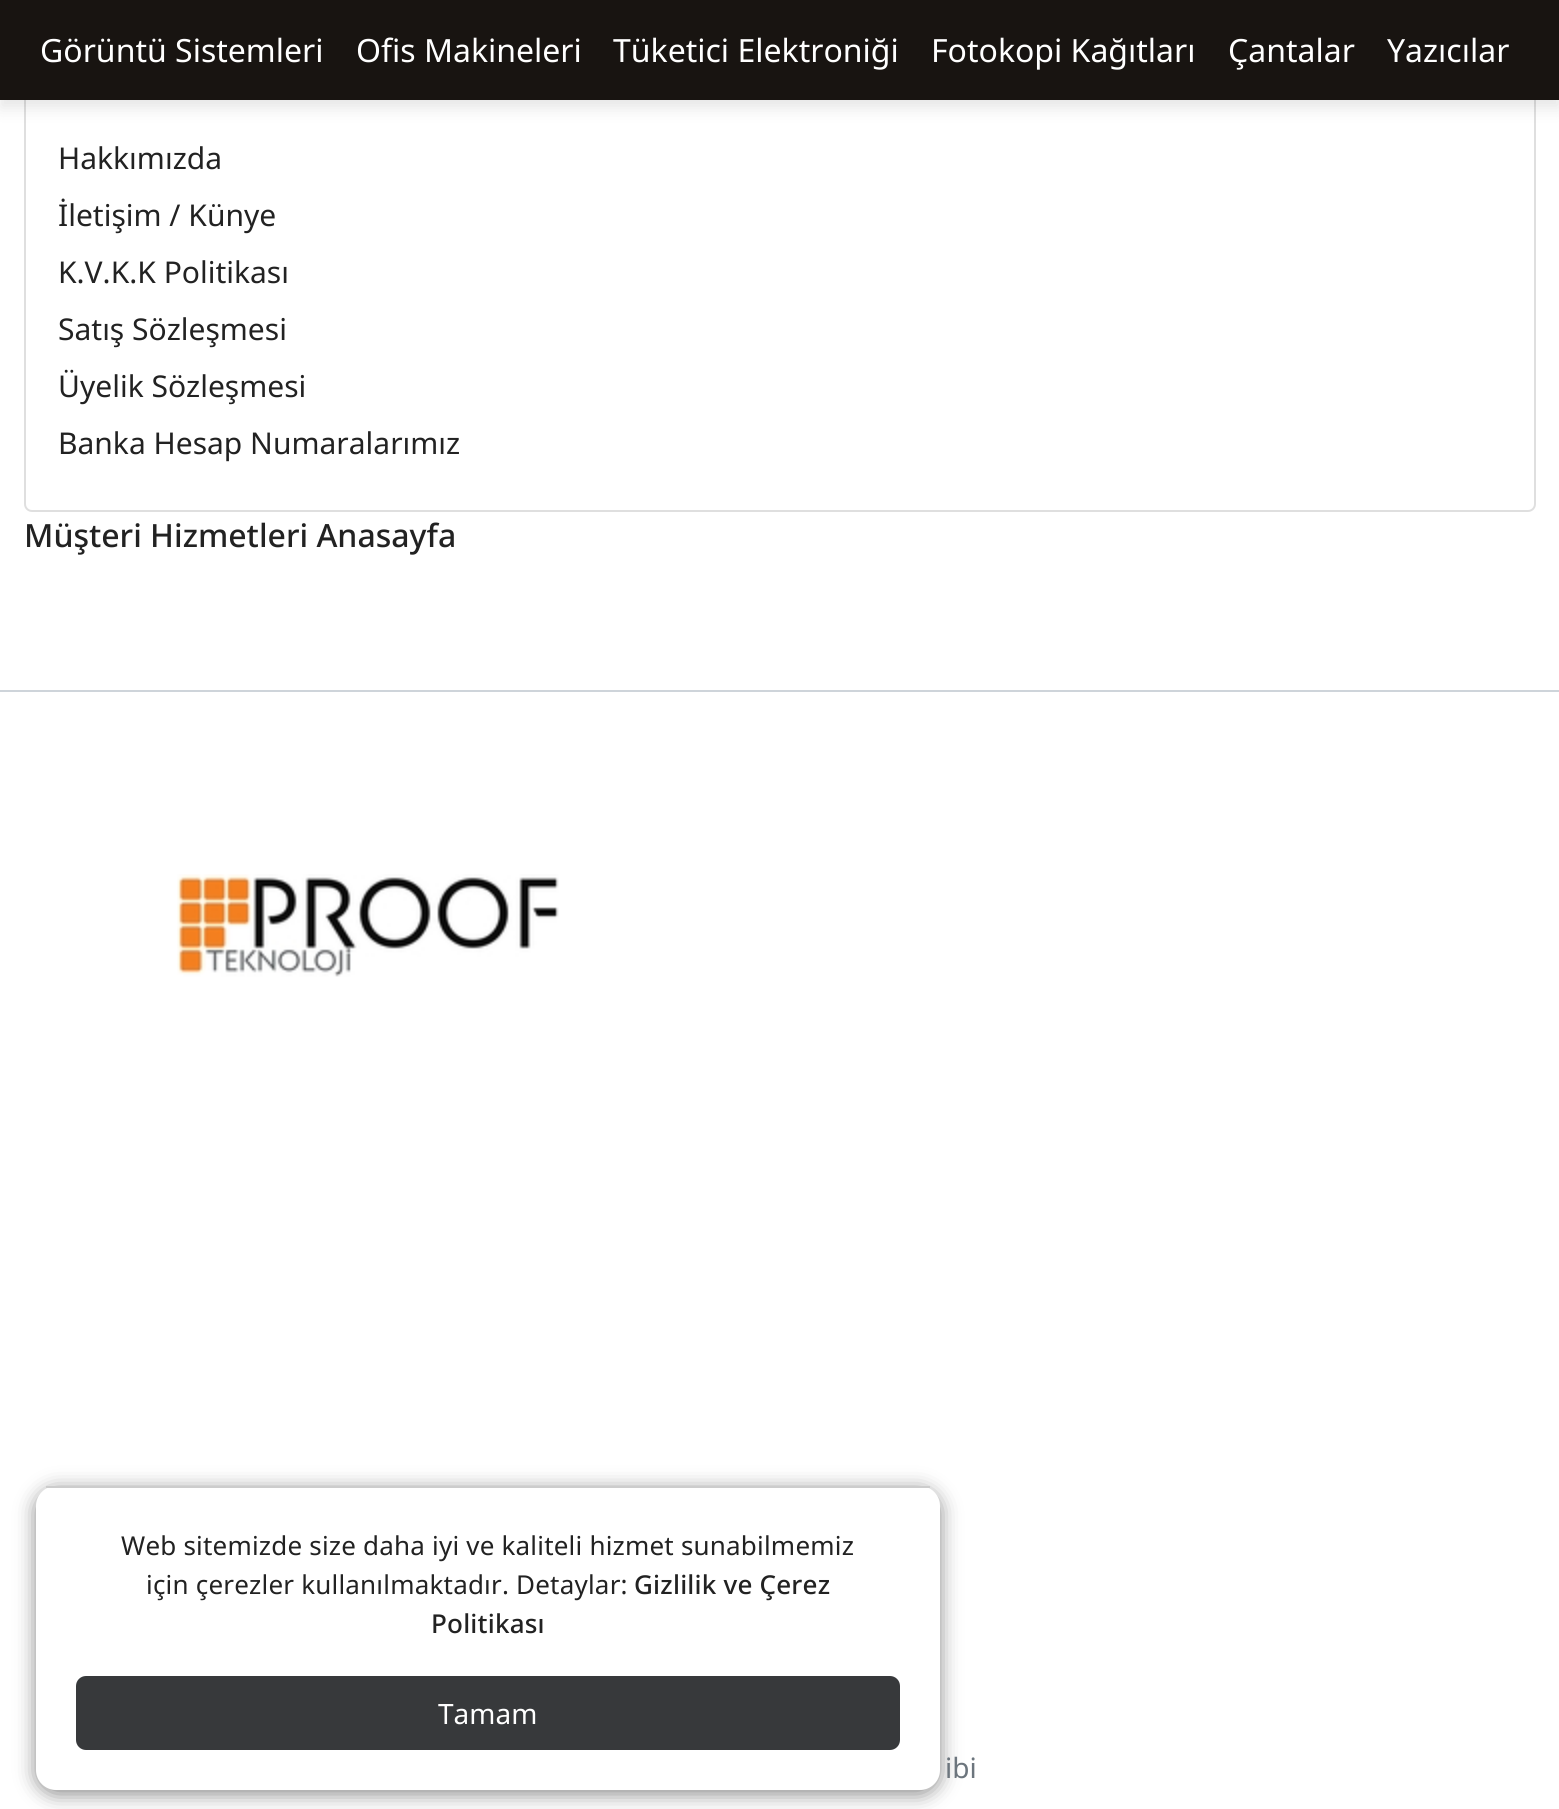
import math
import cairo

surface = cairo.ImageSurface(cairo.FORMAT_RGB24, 1559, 1809)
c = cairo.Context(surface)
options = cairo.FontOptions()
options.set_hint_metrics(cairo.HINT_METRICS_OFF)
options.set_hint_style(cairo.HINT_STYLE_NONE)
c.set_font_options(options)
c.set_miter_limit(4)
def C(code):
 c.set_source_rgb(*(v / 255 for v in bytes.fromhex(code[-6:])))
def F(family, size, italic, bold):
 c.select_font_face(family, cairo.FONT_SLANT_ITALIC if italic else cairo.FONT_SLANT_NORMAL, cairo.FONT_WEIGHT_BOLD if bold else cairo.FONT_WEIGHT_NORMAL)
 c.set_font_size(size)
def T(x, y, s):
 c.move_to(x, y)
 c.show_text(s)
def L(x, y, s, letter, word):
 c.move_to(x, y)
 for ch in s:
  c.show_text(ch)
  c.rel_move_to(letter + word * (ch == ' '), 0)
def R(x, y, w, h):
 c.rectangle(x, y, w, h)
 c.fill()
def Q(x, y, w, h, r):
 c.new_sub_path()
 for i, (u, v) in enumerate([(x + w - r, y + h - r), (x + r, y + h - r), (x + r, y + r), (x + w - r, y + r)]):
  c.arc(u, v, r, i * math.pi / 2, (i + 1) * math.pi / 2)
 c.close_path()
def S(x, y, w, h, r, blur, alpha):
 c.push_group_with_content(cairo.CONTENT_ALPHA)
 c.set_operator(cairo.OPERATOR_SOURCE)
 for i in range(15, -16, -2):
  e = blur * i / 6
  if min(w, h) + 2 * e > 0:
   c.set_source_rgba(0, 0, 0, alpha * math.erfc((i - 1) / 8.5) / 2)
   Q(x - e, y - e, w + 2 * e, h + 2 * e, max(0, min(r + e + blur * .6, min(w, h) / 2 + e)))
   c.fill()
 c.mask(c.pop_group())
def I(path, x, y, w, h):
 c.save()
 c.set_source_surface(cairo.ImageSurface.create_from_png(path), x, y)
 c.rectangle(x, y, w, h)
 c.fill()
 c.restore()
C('ffffff')
c.paint()
Q(25,45,1510,466,7)
C('dfdfdf')
c.stroke()
C('000000')
S(0,8,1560,100,0,8,.1)
C('181411')
R(0,0,1559,100)
F('Noto Sans',32,0,0)
C('ffffff')
T(40,62,'Görüntü Sistemleri')
T(356,62,'Ofis Makineleri')
T(613,62,'Tüketici Elektroniği')
T(931,62,'Fotokopi Kağıtları')
T(1228,62,'Çantalar')
T(1387,62,'Yazıcılar')
C('888888')
S(36,1490,904,304,20,10,1)
C('ffffff')
Q(36,1486,904,304,20)
c.fill()
C('cccccc')
R(46,1486,884,2)
F('Noto Sans',26,0,0)
C('222222')
L(121,1555,'Web sitemizde size daha iyi ve kaliteli hizmet sunabilmemiz',.2,0)
L(146,1594,'için çerezler kullanılmaktadır. Detaylar:',.2,0)
F('Noto Sans Medium',26,0,0)
L(634,1594,'Gizlilik ve Çerez',.2,0)
L(431,1633,'Politikası',.2,0)
C('37393b')
Q(76,1676,824,74,10)
c.fill()
F('Noto Sans',28,0,0)
C('ffffff')
T(438,1724,'Tamam')
F('Noto Sans',30,0,0)
C('222222')
T(58,169,'Hakkımızda')
T(58,226,'İletişim / Künye')
T(58,283,'K.V.K.K Politikası')
T(58,340,'Satış Sözleşmesi')
T(58,397,'Üyelik Sözleşmesi')
T(58,454,'Banka Hesap Numaralarımız')
F('Noto Sans Medium',32,0,0)
T(24,547,'Müşteri Hizmetleri Anasayfa')
C('ced4da')
R(0,690,1559,2)
I('1.png',177,874,382,103)
F('Noto Sans',28,0,0)
C('6c757d')
T(945,1778,'ibi')
surface.write_to_png('o.png')
